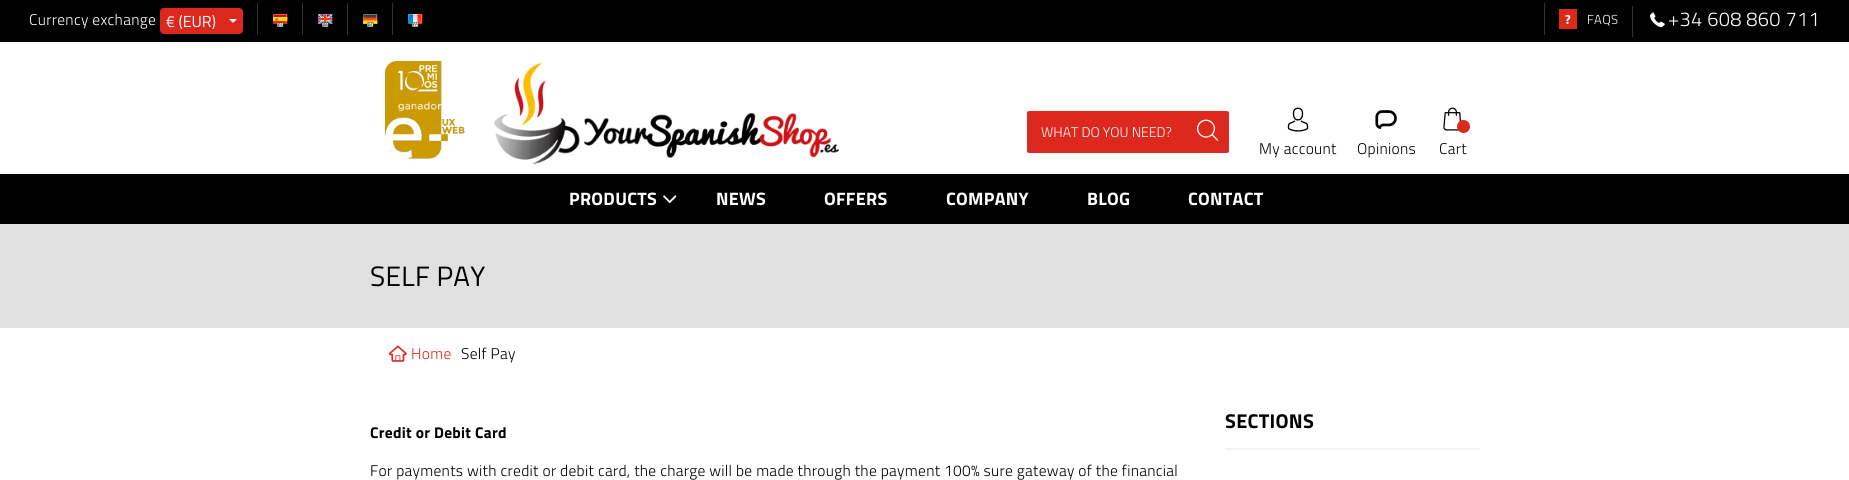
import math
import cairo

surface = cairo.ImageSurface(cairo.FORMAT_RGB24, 1849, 480)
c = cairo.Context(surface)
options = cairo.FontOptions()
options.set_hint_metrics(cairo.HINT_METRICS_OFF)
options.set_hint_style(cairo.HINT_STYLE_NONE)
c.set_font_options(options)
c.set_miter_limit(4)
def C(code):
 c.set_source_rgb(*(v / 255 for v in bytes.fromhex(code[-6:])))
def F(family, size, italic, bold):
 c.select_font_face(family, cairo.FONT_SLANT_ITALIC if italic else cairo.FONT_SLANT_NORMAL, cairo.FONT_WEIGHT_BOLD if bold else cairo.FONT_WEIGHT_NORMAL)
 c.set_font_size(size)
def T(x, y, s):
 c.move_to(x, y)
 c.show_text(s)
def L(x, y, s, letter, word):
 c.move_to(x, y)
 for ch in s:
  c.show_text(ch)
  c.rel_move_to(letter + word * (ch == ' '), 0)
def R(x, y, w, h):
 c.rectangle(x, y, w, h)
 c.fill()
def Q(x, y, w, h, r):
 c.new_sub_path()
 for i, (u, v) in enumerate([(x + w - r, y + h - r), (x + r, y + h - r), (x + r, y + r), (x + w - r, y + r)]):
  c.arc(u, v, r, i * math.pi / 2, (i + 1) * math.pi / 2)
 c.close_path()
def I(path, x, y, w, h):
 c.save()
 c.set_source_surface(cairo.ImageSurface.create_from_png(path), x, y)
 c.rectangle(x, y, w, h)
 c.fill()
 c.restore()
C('ffffff')
c.paint()
C('000000')
R(0,0,1849,42)
F('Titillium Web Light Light',15.5,0,0)
C('ffffff')
L(29,25,'Currency exchange',.29,0)
C('dc281d')
Q(160,8,83,26,4)
c.fill()
F('Titillium Web',16,0,0)
C('ffffff')
T(166,27,'€ (EUR)')
c.new_path()
c.move_to(229,19)
c.line_to(237,19)
c.line_to(233,23)
c.close_path()
c.fill()
C('333333')
R(257,3,1,32)
I('1.png',273,14,15,13)
R(302,3,1,32)
I('2.png',318,14,15,13)
R(347,3,1,32)
I('3.png',363,14,15,13)
R(392,3,1,32)
I('4.png',408,14,15,13)
R(1544,3,1,32)
C('dc281d')
R(1559,9,18,20)
F('Titillium Web',13,0,1)
C('ffffff')
L(1565,24,'?',.29,0)
F('Titillium Web Light Light',13,0,0)
L(1587,24,'FAQS',.29,0)
C('333333')
R(1632,6,1,31)
I('5.png',1650,12,15,16)
F('Titillium Web Light Light',20,0,0)
C('ffffff')
L(1668,26,'+34 608 860 711',.29,0)
I('6.png',385,61,80,98)
I('7.png',494,62,345,102)
C('dc281d')
Q(1027,111,202,42,2)
c.fill()
F('Titillium Web Light Light',14,0,0)
C('ffffff')
T(1041,137,'WHAT DO YOU NEED?')
I('8.png',1197,119,22,22)
I('9.png',1287,107,22,25)
F('Titillium Web Light Light',15.5,0,0)
C('000000')
L(1259,154,'My account',.29,0)
I('10.png',1375,110,22,19)
L(1357,154,'Opinions',.29,0)
I('11.png',1443,107,19,24)
C('dc281d')
c.arc(1463.5,126.5,6.5,0,2 * math.pi)
c.fill()
C('000000')
L(1439,154,'Cart',.29,0)
R(0,174,1849,50)
F('Titillium Web',18,0,1)
C('ffffff')
L(569,205,'PRODUCTS',.29,0)
I('12.png',663,195,14,9)
L(716,205,'NEWS',.29,0)
L(824,205,'OFFERS',.29,0)
L(946,205,'COMPANY',.29,0)
L(1087,205,'BLOG',.29,0)
L(1188,205,'CONTACT',.29,0)
C('e1e1e1')
R(0,224,1849,104)
F('Titillium Web',28,0,0)
C('000000')
L(370,286,'SELF PAY',.29,0)
I('13.png',389,345,18,17)
F('Titillium Web Light Light',15.5,0,0)
C('dc281d')
L(411,359,'Home',.29,0)
C('000000')
L(461,359,'Self Pay',.29,0)
C('f3f3f3')
R(1225,448,255,2)
F('Titillium Web',20,0,1)
C('000000')
L(1225,428,'SECTIONS',.29,0)
F('Titillium Web',15.5,0,1)
L(370,438,'Credit or Debit Card',.29,0)
F('Titillium Web Light Light',15.5,0,0)
L(370,476,'For payments with credit or debit card, the charge will be made through the payment 100% sure gateway of the financial',.29,0)
surface.write_to_png('o.png')
